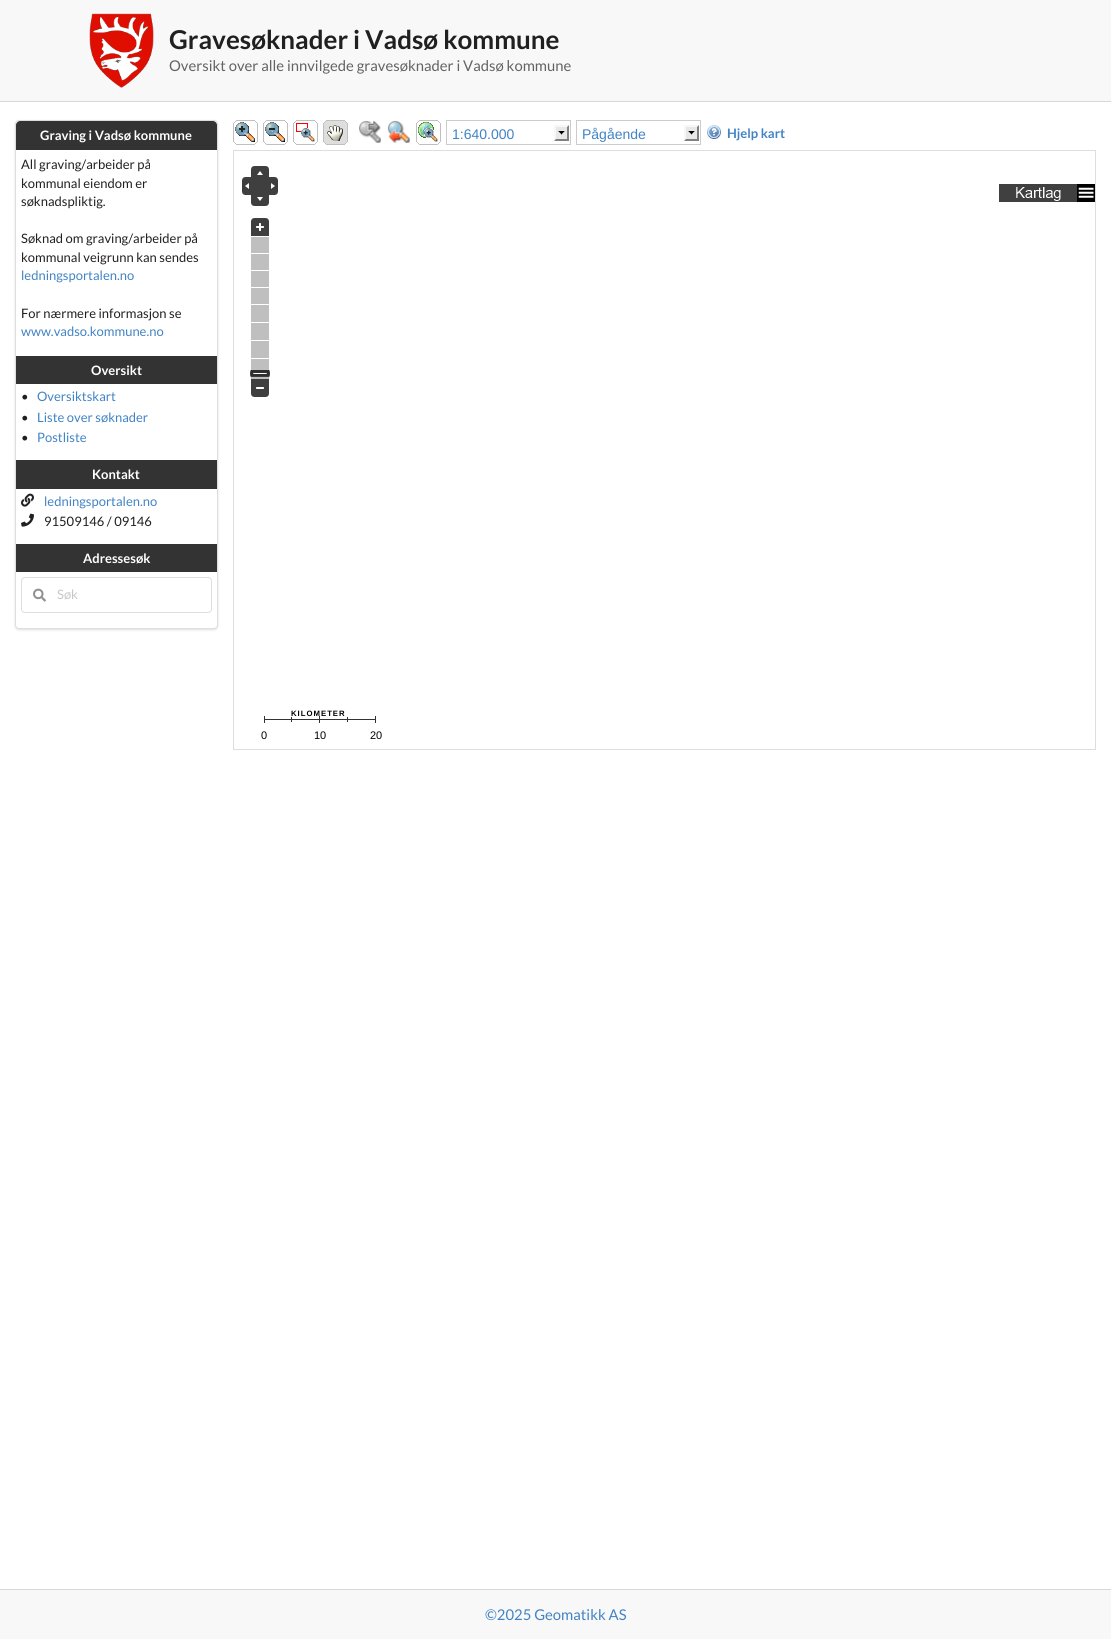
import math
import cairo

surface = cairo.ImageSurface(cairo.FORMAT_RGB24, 1111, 1639)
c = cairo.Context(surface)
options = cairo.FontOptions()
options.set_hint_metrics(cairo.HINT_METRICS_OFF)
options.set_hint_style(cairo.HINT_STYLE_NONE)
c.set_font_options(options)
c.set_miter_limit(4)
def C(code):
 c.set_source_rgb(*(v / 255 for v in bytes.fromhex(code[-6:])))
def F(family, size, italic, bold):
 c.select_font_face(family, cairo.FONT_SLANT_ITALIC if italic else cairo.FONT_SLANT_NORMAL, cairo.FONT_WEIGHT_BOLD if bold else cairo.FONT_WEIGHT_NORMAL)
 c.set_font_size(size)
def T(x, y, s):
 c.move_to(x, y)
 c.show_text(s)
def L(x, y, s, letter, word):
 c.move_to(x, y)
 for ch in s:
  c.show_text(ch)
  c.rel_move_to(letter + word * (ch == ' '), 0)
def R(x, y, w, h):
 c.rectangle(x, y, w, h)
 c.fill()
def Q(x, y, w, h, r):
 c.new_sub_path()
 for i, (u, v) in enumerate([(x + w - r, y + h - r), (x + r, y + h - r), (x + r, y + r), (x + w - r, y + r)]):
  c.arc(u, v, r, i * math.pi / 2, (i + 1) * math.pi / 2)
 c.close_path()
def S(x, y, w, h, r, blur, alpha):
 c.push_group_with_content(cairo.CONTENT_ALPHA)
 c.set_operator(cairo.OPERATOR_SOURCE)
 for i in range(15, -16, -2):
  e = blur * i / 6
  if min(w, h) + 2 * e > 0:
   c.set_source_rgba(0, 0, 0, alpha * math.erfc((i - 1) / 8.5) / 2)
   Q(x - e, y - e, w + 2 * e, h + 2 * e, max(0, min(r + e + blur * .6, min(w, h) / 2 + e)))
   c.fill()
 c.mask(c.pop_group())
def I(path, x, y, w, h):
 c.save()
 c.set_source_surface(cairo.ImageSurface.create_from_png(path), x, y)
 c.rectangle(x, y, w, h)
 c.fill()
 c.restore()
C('ffffff')
c.paint()
C('f8f8f8')
R(0,0,1111,101)
C('d8d8d9')
R(0,101,1111,1)
I('1.png',89,13,65,75)
F('Lato',26,0,1)
C('202020')
T(169,49,'Gravesøknader i Vadsø kommune')
F('Lato',14.85,0,0)
C('636363')
T(169,71,'Oversikt over alle innvilgede gravesøknader i Vadsø kommune')
C('222426')
S(15,121,203,509,4,1,.15)
C('ffffff')
Q(15.5,120.5,202,508,3.5)
c.fill_preserve()
C('dedede')
c.set_line_width(1)
c.stroke()
C('333333')
c.new_path()
c.move_to(20,121)
c.line_to(213,121)
c.curve_to(215,121,217,123,217,125)
c.line_to(217,150)
c.line_to(16,150)
c.line_to(16,125)
c.curve_to(16,123,18,121,20,121)
c.close_path()
c.fill()
F('Lato',13,0,1)
C('ffffff')
T(40,140,'Graving i Vadsø kommune')
F('Lato',13,0,0)
C('202020')
T(21,169,'All graving/arbeider på')
T(21,188,'kommunal eiendom er')
T(21,206,'søknadspliktig.')
T(21,243,'Søknad om graving/arbeider på')
T(21,262,'kommunal veigrunn kan sendes')
C('4183c4')
T(21,280,'ledningsportalen.no')
C('202020')
T(21,318,'For nærmere informasjon se')
C('4183c4')
T(21,336,'www.vadso.kommune.no')
C('333333')
R(16,356,201,28)
F('Lato',13,0,1)
C('ffffff')
T(91,375,'Oversikt')
F('Lato',13,0,0)
C('202020')
T(21,401,'•')
C('4183c4')
T(37,401,'Oversiktskart')
C('202020')
T(21,422,'•')
C('4183c4')
T(37,422,'Liste over søknader')
C('202020')
T(21,442,'•')
C('4183c4')
T(37,442,'Postliste')
C('333333')
R(16,460,201,29)
F('Lato',13,0,1)
C('ffffff')
T(92,479,'Kontakt')
I('2.png',21,493,13,14)
F('Lato',13,0,0)
C('4183c4')
T(44,506,'ledningsportalen.no')
I('3.png',21,513,13,14)
C('202020')
T(44,526,'91509146 / 09146')
C('333333')
R(16,544,201,28)
F('Lato',13,0,1)
C('ffffff')
T(83,563,'Adressesøk')
Q(21.5,577.5,190,35,3.5)
C('dedede')
c.stroke()
I('4.png',33,588,13,14)
F('Lato',13,0,0)
C('c7c7c7')
T(57,599,'Søk')
I('5.png',233,120,25,25)
I('6.png',263,120,25,25)
I('7.png',293,120,25,25)
I('8.png',323,120,25,25)
I('9.png',359,121,22,22)
I('10.png',387,120,23,23)
I('11.png',416,120,25,25)
I('12.png',554,125,15,16)
c.rectangle(446.5,120.5,124,24)
C('cccccc')
c.stroke()
F('Liberation Sans',14,0,0)
C('4183c4')
T(452,139,'1:640.000')
I('12.png',684,125,15,16)
c.rectangle(576.5,120.5,124,24)
C('cccccc')
c.stroke()
C('4183c4')
T(582,139,'Pågående')
I('13.png',707,125,14,14)
F('Lato',13,0,1)
T(727,138,'Hjelp kart')
c.rectangle(233.5,150.5,862,599)
C('dedede')
c.stroke()
I('14.png',251,166,18,11)
I('15.png',242,177,18,18)
I('16.png',260,177,18,18)
I('17.png',251,195,18,11)
I('18.png',251,218,18,18)
I('19.png',251,237,18,142)
I('20.png',250,370,20,7)
I('21.png',251,379,18,18)
I('22.png',999,184,96,18)
C('333333')
R(264,716,1,7)
R(264,719,112,1)
R(319,716,1,7)
F('Liberation Sans',7.75,0,1)
C('000000')
L(291,716,'KILOMETER',1,0)
C('333333')
R(291,717,1,5)
R(347,717,1,5)
R(375,716,1,7)
F('Liberation Sans',11,0,0)
C('000000')
T(261,739,'0')
T(314,739,'10')
T(370,739,'20')
C('f8f8f8')
R(0,1590,1111,49)
C('d8d8d9')
R(0,1589,1111,1)
F('Lato',14.85,0,0)
C('4183c4')
T(485,1620,'©2025 Geomatikk AS')
surface.write_to_png('o.png')
